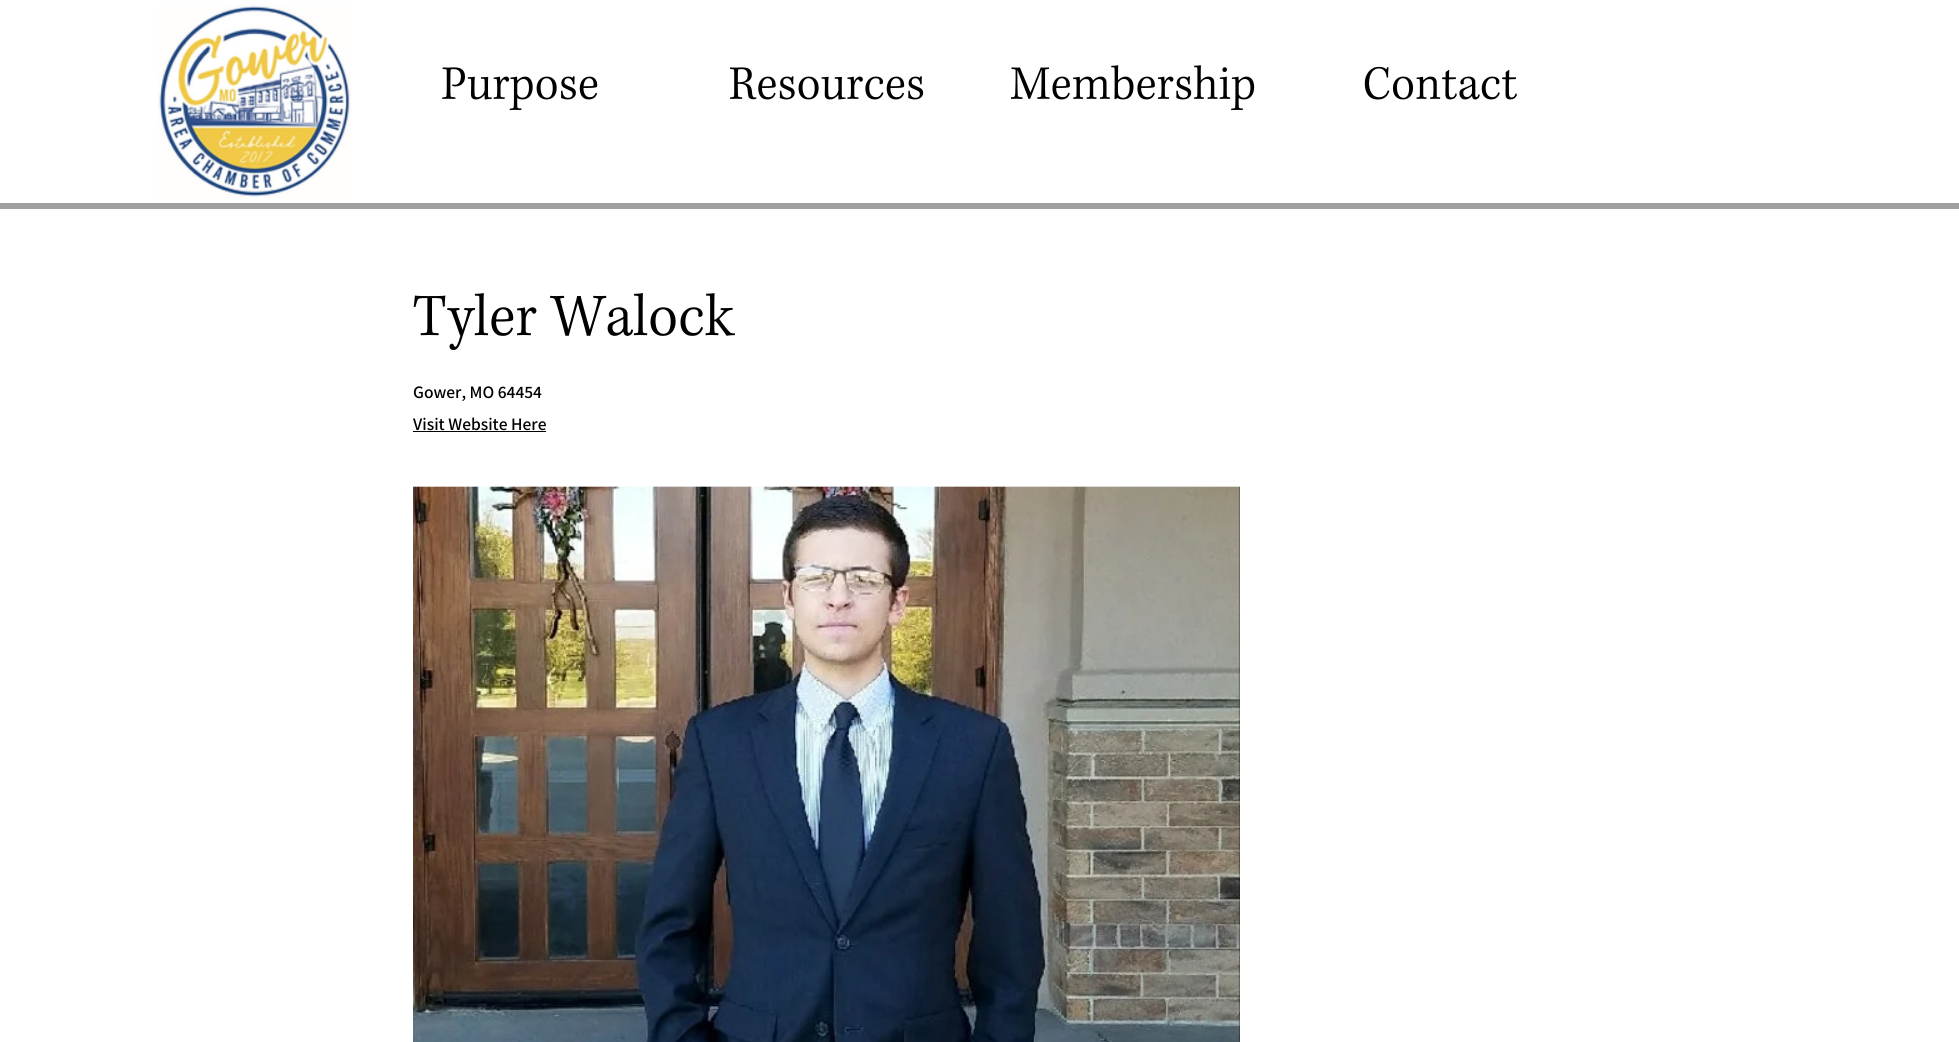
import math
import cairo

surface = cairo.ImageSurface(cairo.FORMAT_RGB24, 1959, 1042)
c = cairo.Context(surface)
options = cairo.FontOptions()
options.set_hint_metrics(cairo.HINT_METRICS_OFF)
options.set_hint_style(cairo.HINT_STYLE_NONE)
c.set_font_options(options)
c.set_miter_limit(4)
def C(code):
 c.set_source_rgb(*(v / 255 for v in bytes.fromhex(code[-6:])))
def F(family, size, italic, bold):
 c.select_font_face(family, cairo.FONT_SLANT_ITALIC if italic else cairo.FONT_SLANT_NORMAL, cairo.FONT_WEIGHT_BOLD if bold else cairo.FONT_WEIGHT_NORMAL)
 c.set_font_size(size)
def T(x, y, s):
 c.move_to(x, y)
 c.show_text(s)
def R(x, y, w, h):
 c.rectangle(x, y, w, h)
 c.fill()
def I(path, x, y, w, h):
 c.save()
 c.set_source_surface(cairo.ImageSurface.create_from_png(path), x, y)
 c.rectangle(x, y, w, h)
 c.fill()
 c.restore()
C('ffffff')
c.paint()
I('1.png',157,4,195,194)
I('2.png',442,67,156,44)
I('3.png',730,67,194,33)
I('4.png',1010,65,245,46)
I('5.png',1364,66,153,34)
C('a0a09f')
R(0,203,1959,6)
I('6.png',413,293,322,57)
F('Assistant SemiBold',17.5,0,0)
C('000000')
T(413,398,'Gower, MO 64454')
T(413,430,'Visit Website Here')
R(413,431,133,1)
I('7.png',413,486,827,556)
surface.write_to_png('o.png')
